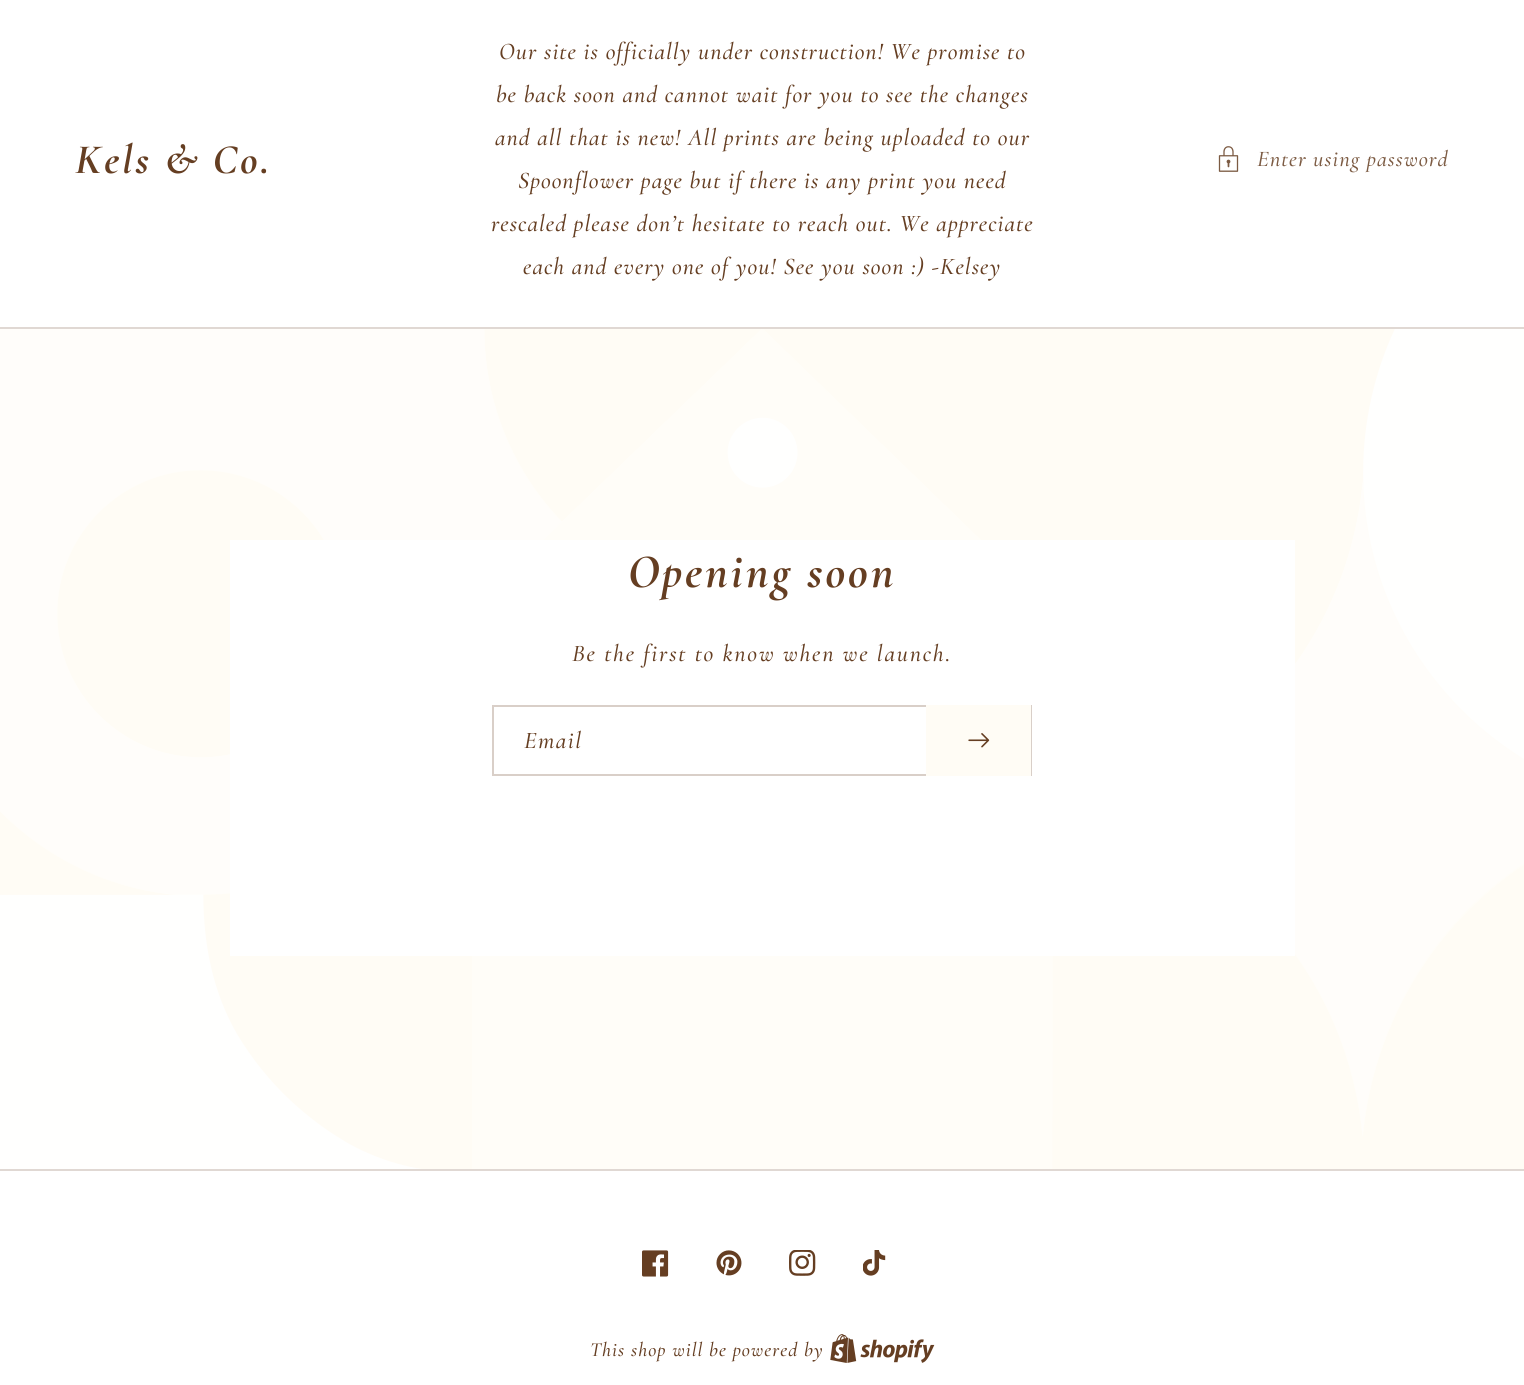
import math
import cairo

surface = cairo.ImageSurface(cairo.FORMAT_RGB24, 1524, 1385)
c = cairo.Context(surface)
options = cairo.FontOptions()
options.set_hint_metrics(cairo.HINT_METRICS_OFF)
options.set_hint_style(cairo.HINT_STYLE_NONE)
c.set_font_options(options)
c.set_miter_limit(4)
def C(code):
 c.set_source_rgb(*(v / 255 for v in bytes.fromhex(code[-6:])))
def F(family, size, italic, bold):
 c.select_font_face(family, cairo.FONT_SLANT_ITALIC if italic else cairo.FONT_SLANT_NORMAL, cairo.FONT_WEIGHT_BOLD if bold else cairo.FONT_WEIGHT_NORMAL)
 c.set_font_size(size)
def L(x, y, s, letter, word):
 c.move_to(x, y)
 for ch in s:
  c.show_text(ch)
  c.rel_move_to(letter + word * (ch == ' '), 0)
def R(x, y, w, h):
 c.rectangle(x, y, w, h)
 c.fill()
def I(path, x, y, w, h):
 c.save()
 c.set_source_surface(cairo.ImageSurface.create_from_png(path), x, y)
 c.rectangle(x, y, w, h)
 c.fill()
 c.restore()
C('ffffff')
c.paint()
F('Cormorant',42,1,1)
C('653e22')
L(75,173,'Kels & Co.',3,0)
F('Cormorant Medium',24,1,0)
L(499,59,'Our site is officially under construction! We promise to',1.05,0)
L(496,102,'be back soon and cannot wait for you to see the changes',1.05,0)
L(495,145,'and all that is new! All prints are being uploaded to our',1.05,0)
L(518,188,'Spoonflower page but if there is any print you need',1.05,0)
L(491,231,'rescaled please don’t hesitate to reach out. We appreciate',1.05,0)
L(523,274,'each and every one of you! See you soon :) -Kelsey',1.05,0)
I('1.png',1218,146,21,26)
F('Cormorant Medium',22.5,1,0)
C('7c5b43')
L(1257,166,'Enter using password',1.05,0)
C('e0d8d3')
R(0,327,1524,2)
I('2.png',0,329,1524,840)
C('ffffff')
R(230,540,1065,416)
F('Cormorant',48,1,1)
C('653e22')
L(628,587,'Opening soon',3,0)
F('Cormorant Medium',24,1,0)
L(572,661,'Be the first to know when we launch.',1.8,0)
c.rectangle(493,706,538,69)
C('d9cfc8')
c.stroke()
C('653e22')
L(524,748,'Email',1.5,0)
C('fffcf5')
R(926,705,105,71)
I('3.png',968,733,22,15)
C('e0d8d3')
R(0,1169,1524,2)
I('4.png',642,1250,27,27)
I('5.png',716,1250,26,26)
I('6.png',789,1250,27,26)
I('7.png',863,1250,23,26)
F('Cormorant Medium',20,1,0)
C('653e22')
L(590,1356,'This shop will be powered by',1.05,0)
I('8.png',830,1334,105,29)
surface.write_to_png('o.png')
